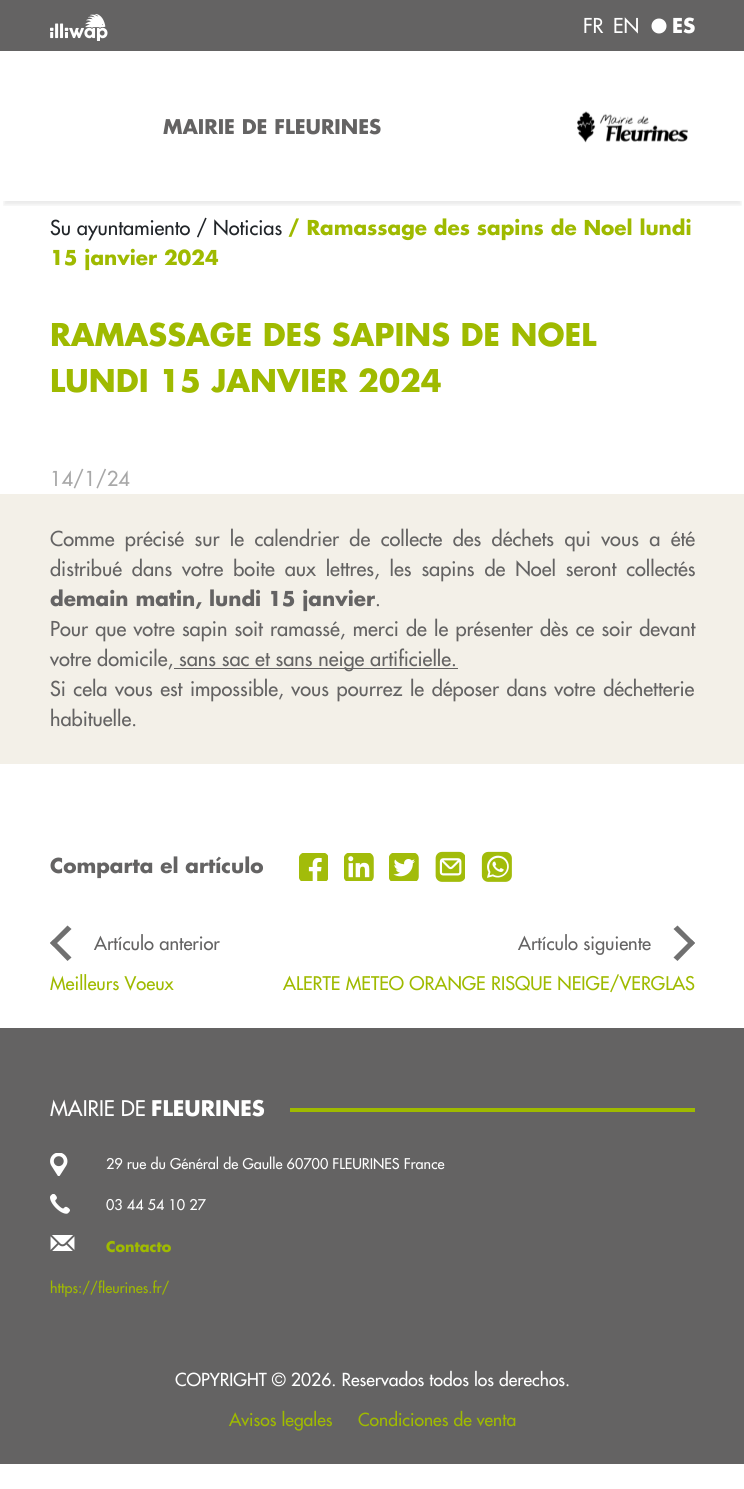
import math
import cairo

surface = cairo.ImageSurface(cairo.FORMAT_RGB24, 744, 1489)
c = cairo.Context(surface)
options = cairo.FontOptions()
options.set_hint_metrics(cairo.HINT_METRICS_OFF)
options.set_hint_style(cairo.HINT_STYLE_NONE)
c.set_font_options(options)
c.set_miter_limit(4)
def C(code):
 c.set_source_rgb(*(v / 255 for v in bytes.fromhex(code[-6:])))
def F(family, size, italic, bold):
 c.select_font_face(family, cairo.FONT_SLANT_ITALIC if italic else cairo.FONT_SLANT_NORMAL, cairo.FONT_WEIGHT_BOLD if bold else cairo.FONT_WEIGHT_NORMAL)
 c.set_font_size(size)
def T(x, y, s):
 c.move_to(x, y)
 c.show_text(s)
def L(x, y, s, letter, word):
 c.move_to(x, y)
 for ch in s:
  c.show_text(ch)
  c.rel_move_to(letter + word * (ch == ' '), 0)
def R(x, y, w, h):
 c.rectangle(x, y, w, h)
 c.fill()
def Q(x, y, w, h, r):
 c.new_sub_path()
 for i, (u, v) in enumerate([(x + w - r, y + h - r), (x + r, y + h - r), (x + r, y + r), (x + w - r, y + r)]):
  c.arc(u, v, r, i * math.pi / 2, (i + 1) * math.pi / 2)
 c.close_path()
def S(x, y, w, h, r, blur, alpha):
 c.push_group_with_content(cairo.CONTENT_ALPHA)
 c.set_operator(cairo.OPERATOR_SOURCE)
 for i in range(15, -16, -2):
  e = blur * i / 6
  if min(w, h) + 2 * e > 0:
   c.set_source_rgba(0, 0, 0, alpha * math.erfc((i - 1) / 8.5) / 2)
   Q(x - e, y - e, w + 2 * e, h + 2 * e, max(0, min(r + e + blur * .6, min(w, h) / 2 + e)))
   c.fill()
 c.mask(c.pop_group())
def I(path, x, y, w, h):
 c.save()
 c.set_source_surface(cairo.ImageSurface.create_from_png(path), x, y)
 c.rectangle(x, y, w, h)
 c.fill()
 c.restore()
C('ffffff')
c.paint()
c.save()
c.rectangle(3,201,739,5)
c.clip()
C('000000')
S(4,11,737,194,0,2,.08)
c.restore()
C('646363')
R(0,0,744,51)
I('1.png',50,14,58,27)
F('Futura',20,0,0)
C('ffffff')
T(583,33,'FR')
T(613,33,'EN')
c.new_path()
c.arc(659,26,7.5,0,2 * math.pi)
c.fill()
F('Futura',20,0,1)
T(672,33,'ES')
F('Futura',19.75,0,1)
C('646363')
T(163,134,'MAIRIE DE FLEURINES')
I('2.png',577,111,111,32)
F('Futura',20,0,0)
C('212529')
T(50,235,'Su ayuntamiento / Noticias')
F('Futura',20,0,1)
C('9fba00')
T(288,235,'/ Ramassage des sapins de Noel lundi')
T(50,265,'15 janvier 2024')
F('Futura',30.5,0,1)
T(50,346,'RAMASSAGE DES SAPINS DE NOEL')
T(50,392,'LUNDI 15 JANVIER 2024')
F('Futura',20,0,0)
C('a8a8a8')
T(50,486,'14/1/24')
C('f3f0e8')
R(0,494,744,270)
C('646363')
L(50,546,'Comme précisé sur le calendrier de collecte des déchets qui vous a été',0,4.6)
L(50,576,'distribué dans votre boite aux lettres, les sapins de Noel seront collectés',0,4.1)
F('Futura',20,0,1)
T(50,606,'demain matin, lundi 15 janvier')
F('Futura',20,0,0)
T(375,606,'.')
L(50,636,'Pour que votre sapin soit ramassé, merci de le présenter dès ce soir devant',0,1.4)
T(50,666,'votre domicile,')
R(174,668,284,1)
T(179,666,'sans sac et sans neige artificielle.')
L(50,696,'Si cela vous est impossible, vous pourrez le déposer dans votre déchetterie',0,1.75)
T(50,726,'habituelle.')
F('Futura',20,0,1)
T(50,873,'Comparta el artículo')
I('3.png',299,853,29,28)
I('4.png',344,853,30,28)
I('5.png',389,853,30,28)
I('6.png',435,851,30,31)
I('7.png',481,851,31,31)
C('707070')
c.new_path()
c.move_to(67.5,961)
c.line_to(50,943)
c.line_to(53.5,939.5)
c.line_to(71.5,957.5)
c.close_path()
c.fill()
c.new_path()
c.move_to(50,943)
c.line_to(67.5,925.5)
c.line_to(71.5,929)
c.line_to(53.5,946.5)
c.close_path()
c.fill()
F('Futura',18.35,0,0)
C('646363')
T(94,950,'Artículo anterior')
C('707070')
c.new_path()
c.move_to(677.5,925.5)
c.line_to(695,943)
c.line_to(691.5,946.5)
c.line_to(673.5,929)
c.close_path()
c.fill()
c.new_path()
c.move_to(695,943)
c.line_to(677.5,961)
c.line_to(673.5,957.5)
c.line_to(691.5,939.5)
c.close_path()
c.fill()
C('646363')
T(518,950,'Artículo siguiente')
C('9fba00')
T(50,990,'Meilleurs Voeux')
T(283,990,'ALERTE METEO ORANGE RISQUE NEIGE/VERGLAS')
C('646363')
R(0,1028,744,436)
C('9fba00')
R(290,1108,405,4)
F('Futura',21,0,0)
C('ffffff')
T(50,1116,'MAIRIE DE')
F('Futura',21,0,1)
T(151,1116,'FLEURINES')
I('8.png',50,1153,18,23)
F('Futura',14.4,0,0)
T(106,1169,'29 rue du Général de Gaulle 60700 FLEURINES France')
I('9.png',50,1194,20,20)
T(106,1210,'03 44 54 10 27')
I('10.png',50,1235,25,16)
F('Futura',14.4,0,1)
C('9fba00')
T(106,1252,'Contacto')
F('Futura',14.4,0,0)
T(50,1293,'https://fleurines.fr/')
F('Futura',17.5,0,0)
C('ffffff')
T(175,1386,'COPYRIGHT © 2026. Reservados todos los derechos.')
C('9fba00')
T(229,1426,'Avisos legales')
T(358,1426,'Condiciones de venta')
surface.write_to_png('o.png')
